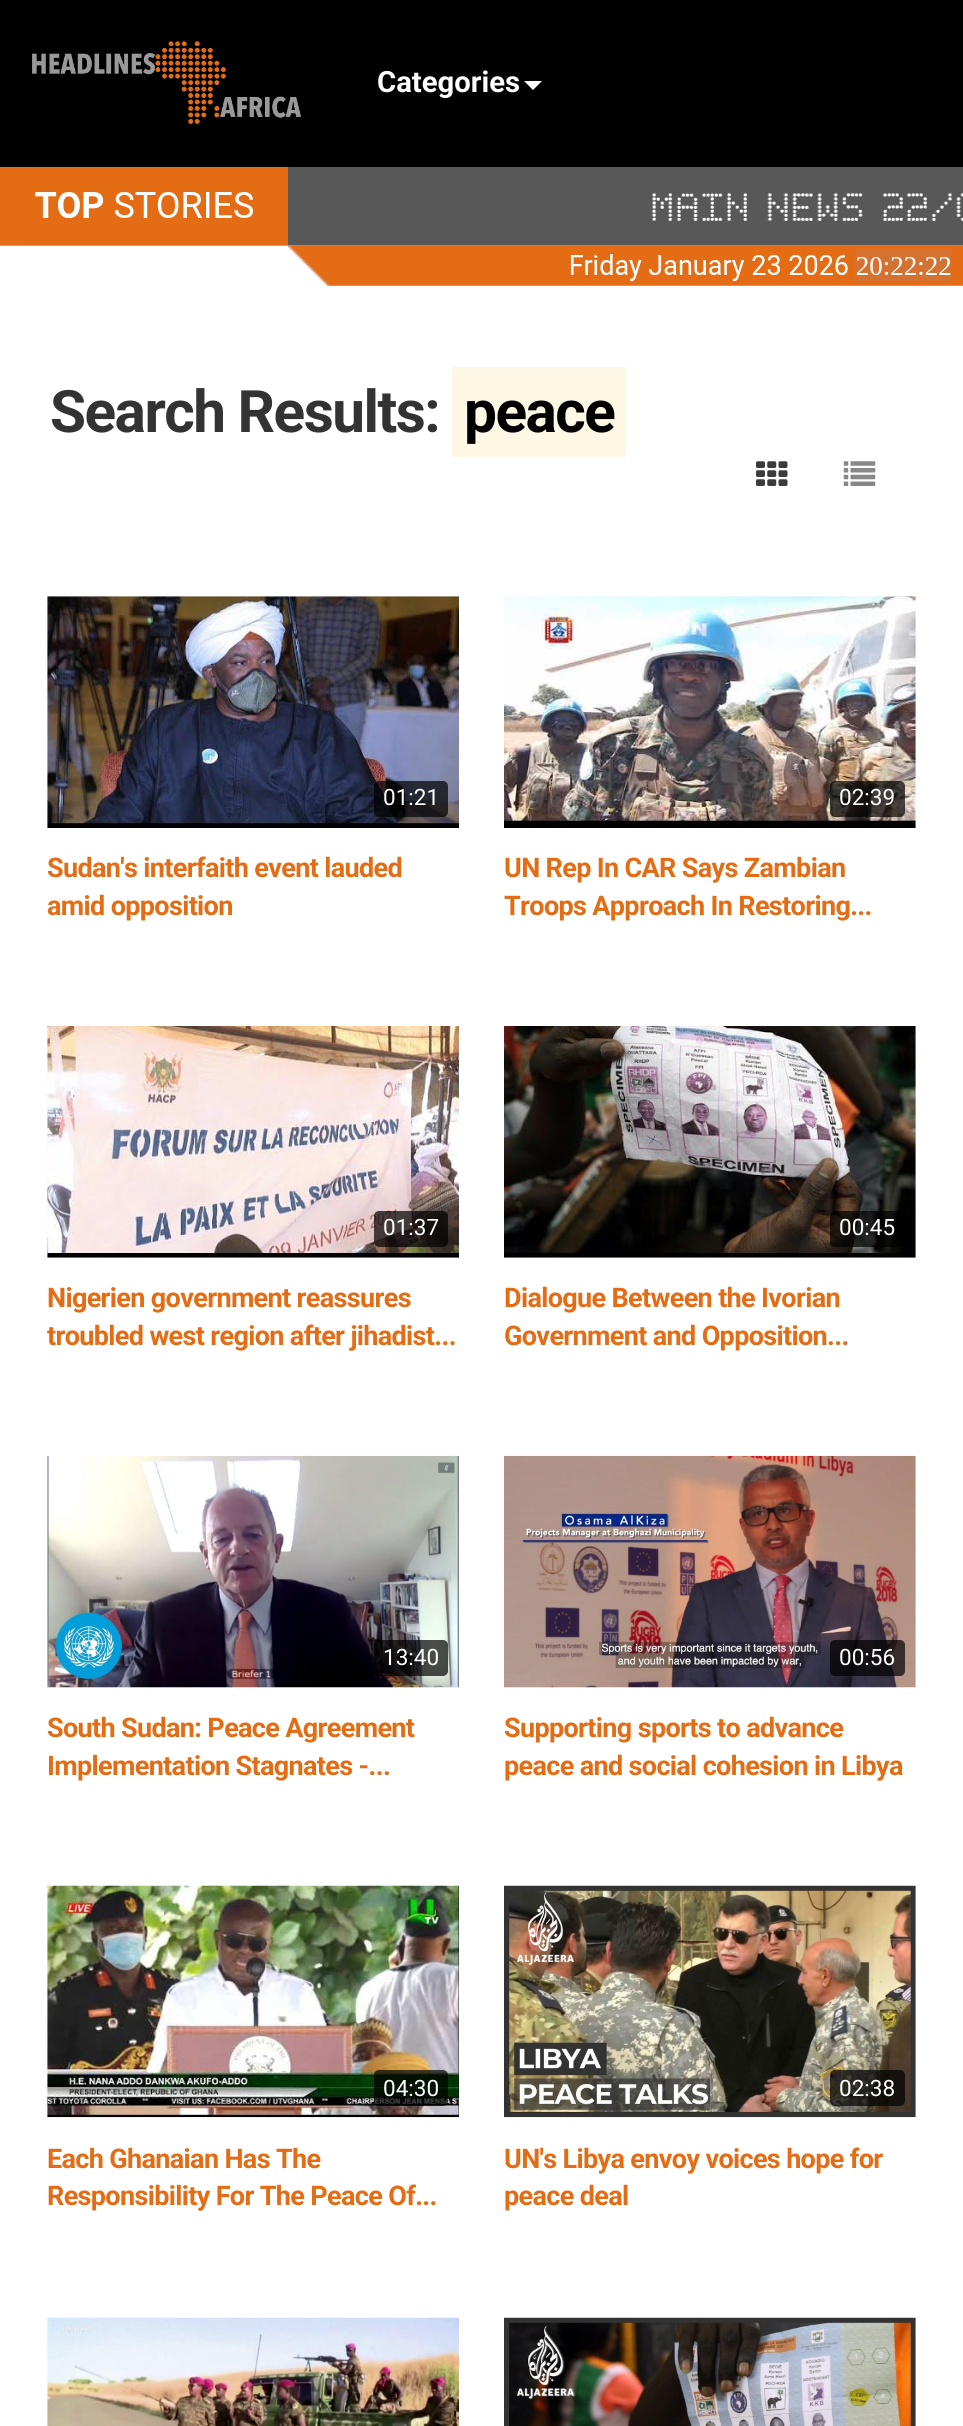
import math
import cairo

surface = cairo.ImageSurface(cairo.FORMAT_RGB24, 963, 2426)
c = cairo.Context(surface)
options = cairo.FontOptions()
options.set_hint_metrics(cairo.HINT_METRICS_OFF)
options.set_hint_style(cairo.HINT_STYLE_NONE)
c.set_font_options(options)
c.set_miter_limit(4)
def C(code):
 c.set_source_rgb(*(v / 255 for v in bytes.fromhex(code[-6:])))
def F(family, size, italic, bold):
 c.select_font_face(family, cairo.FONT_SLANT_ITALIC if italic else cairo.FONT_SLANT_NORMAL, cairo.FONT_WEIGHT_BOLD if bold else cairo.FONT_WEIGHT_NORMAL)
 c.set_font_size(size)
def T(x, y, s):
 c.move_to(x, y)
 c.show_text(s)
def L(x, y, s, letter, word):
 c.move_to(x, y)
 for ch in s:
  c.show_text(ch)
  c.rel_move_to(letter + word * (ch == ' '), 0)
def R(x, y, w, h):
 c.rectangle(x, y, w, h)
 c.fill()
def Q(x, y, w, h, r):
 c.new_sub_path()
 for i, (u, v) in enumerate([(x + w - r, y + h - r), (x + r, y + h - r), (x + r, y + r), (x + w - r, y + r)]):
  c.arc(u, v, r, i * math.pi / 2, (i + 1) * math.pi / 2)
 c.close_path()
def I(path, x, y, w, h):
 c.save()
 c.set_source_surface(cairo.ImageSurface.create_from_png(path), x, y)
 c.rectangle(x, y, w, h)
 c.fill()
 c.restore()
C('ffffff')
c.paint()
C('000000')
R(0,0,963,167)
I('1.png',32,41,270,84)
F('Roboto',29.25,0,1)
C('ffffff')
T(377,92,'Categories')
c.new_path()
c.move_to(524,81)
c.line_to(542,81)
c.line_to(533,90)
c.close_path()
c.fill()
I('2.png',0,167,963,119)
F('Roboto',58.5,0,1)
C('333333')
L(50,432,'Search Results:',-1.5,0)
C('fcf8e3')
R(452,367,174,90)
C('000000')
L(464,432,'peace',-1.5,0)
I('3.png',756,461,32,25)
I('4.png',843,461,33,25)
C('fafafa')
R(47,596,412,232)
I('5.png',47,596,412,232)
c.set_source_rgba(0,0,0,0.7)
Q(374,781,74,36,5)
c.fill()
F('Roboto',22.5,0,0)
C('ffffff')
T(383,805,'01:21')
F('Roboto',27,0,1)
C('e36c14')
L(47,877,'Sudan\'s interfaith event lauded',-.65,0)
L(47,915,'amid opposition',-.65,0)
C('fafafa')
R(504,596,412,232)
I('6.png',504,596,412,232)
c.set_source_rgba(0,0,0,0.7)
Q(830,781,75,36,5)
c.fill()
F('Roboto',22.5,0,0)
C('ffffff')
T(839,805,'02:39')
F('Roboto',27,0,1)
C('e36c14')
L(504,877,'UN Rep In CAR Says Zambian',-.65,0)
L(504,915,'Troops Approach In Restoring...',-.65,0)
C('fafafa')
R(47,1026,412,232)
I('7.png',47,1026,412,232)
c.set_source_rgba(0,0,0,0.7)
Q(374,1211,74,36,5)
c.fill()
F('Roboto',22.5,0,0)
C('ffffff')
T(383,1235,'01:37')
F('Roboto',27,0,1)
C('e36c14')
L(47,1307,'Nigerien government reassures',-.65,0)
L(47,1345,'troubled west region after jihadist...',-.65,0)
C('fafafa')
R(504,1026,412,232)
I('8.png',504,1026,412,232)
c.set_source_rgba(0,0,0,0.7)
Q(830,1211,75,36,5)
c.fill()
F('Roboto',22.5,0,0)
C('ffffff')
T(839,1235,'00:45')
F('Roboto',27,0,1)
C('e36c14')
L(504,1307,'Dialogue Between the Ivorian',-.65,0)
L(504,1345,'Government and Opposition...',-.65,0)
C('fafafa')
R(47,1456,412,232)
I('9.png',47,1455,412,233)
c.set_source_rgba(0,0,0,0.7)
Q(374,1640,74,36,5)
c.fill()
F('Roboto',22.5,0,0)
C('ffffff')
T(383,1665,'13:40')
F('Roboto',27,0,1)
C('e36c14')
L(47,1737,'South Sudan: Peace Agreement',-.65,0)
L(47,1775,'Implementation Stagnates -...',-.65,0)
C('fafafa')
R(504,1456,412,232)
I('10.png',504,1455,412,233)
c.set_source_rgba(0,0,0,0.7)
Q(830,1640,75,36,5)
c.fill()
F('Roboto',22.5,0,0)
C('ffffff')
T(839,1665,'00:56')
F('Roboto',27,0,1)
C('e36c14')
L(504,1737,'Supporting sports to advance',-.65,0)
L(504,1775,'peace and social cohesion in Libya',-.65,0)
C('fafafa')
R(47,1886,1,231)
I('11.png',47,1885,412,233)
c.set_source_rgba(0,0,0,0.7)
Q(374,2070,74,36,5)
c.fill()
F('Roboto',22.5,0,0)
C('ffffff')
T(383,2096,'04:30')
F('Roboto',27,0,1)
C('e36c14')
L(47,2168,'Each Ghanaian Has The',-.65,0)
L(47,2205,'Responsibility For The Peace Of...',-.65,0)
C('fafafa')
R(915,1886,1,231)
I('12.png',504,1885,412,233)
c.set_source_rgba(0,0,0,0.7)
Q(830,2070,75,36,5)
c.fill()
F('Roboto',22.5,0,0)
C('ffffff')
T(839,2096,'02:38')
F('Roboto',27,0,1)
C('e36c14')
L(504,2168,'UN\'s Libya envoy voices hope for',-.65,0)
L(504,2205,'peace deal',-.65,0)
C('fafafa')
R(47,2318,1,108)
I('13.png',47,2317,412,109)
R(915,2318,1,108)
I('14.png',504,2317,412,109)
surface.write_to_png('o.png')
